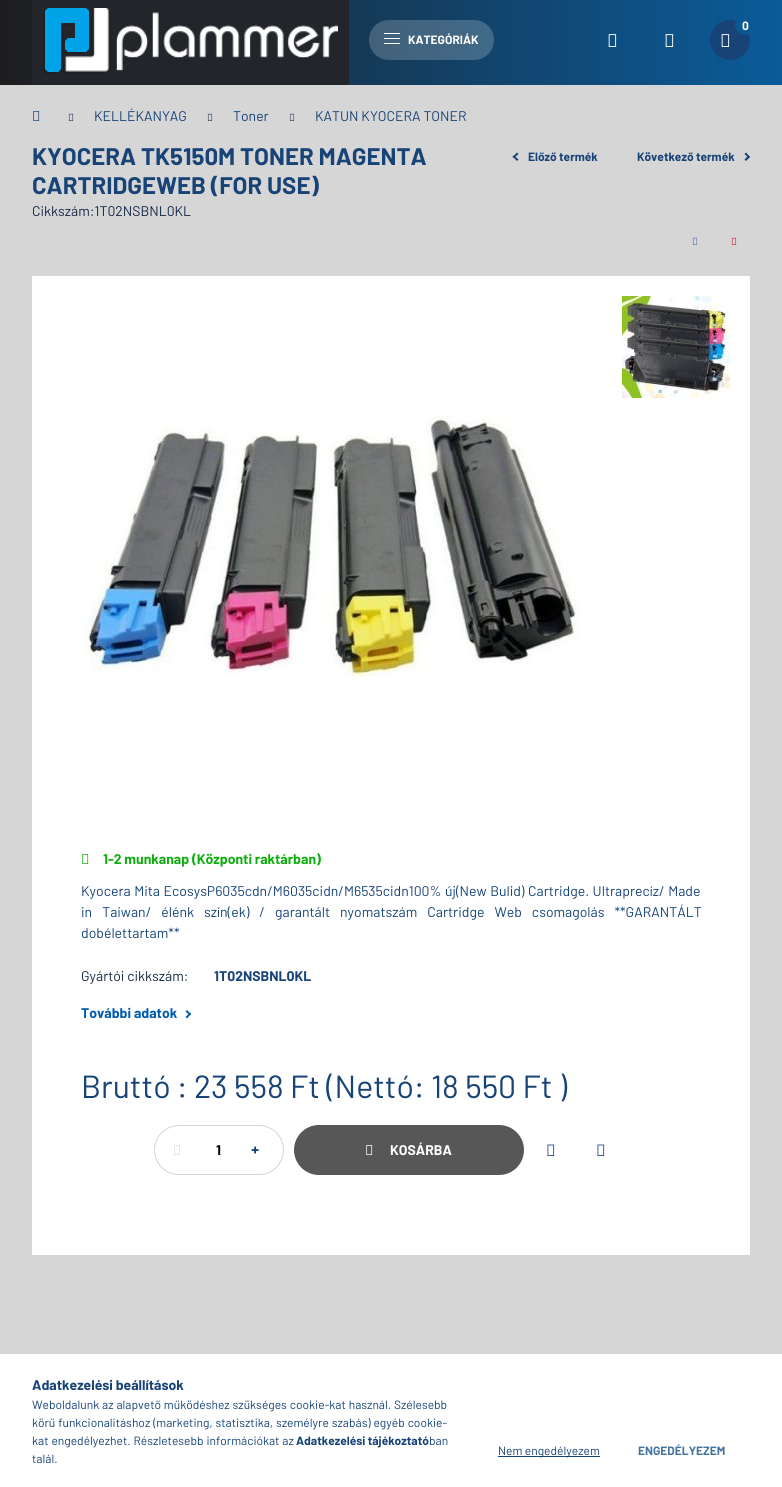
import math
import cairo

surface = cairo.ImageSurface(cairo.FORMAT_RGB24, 782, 1487)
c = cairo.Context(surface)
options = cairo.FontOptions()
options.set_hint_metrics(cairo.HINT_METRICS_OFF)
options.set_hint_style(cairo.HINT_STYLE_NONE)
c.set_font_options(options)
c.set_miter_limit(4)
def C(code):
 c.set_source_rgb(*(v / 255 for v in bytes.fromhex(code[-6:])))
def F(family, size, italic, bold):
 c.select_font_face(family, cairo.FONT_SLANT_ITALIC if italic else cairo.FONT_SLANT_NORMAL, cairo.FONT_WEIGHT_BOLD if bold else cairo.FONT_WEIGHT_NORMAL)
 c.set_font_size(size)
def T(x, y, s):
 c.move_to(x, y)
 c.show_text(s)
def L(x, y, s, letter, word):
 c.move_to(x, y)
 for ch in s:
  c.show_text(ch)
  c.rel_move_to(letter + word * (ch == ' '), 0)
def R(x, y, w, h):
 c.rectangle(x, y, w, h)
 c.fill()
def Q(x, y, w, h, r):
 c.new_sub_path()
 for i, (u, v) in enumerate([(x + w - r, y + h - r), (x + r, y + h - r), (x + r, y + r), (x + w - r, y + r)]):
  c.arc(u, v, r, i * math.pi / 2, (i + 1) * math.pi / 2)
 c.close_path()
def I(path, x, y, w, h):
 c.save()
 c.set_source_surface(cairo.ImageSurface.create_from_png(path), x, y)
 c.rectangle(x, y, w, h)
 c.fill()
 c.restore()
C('d6d6d6')
c.paint()
gradient = cairo.LinearGradient(0,744,782,744)
gradient.add_color_stop_rgba(0,0.114,0.114,0.122,1)
gradient.add_color_stop_rgba(1,0.043,0.357,0.6,1)
c.set_source(gradient)
R(0,0,782,85)
C('174377')
c.arc(730,40,20,0,2 * math.pi)
c.fill()
gradient = cairo.LinearGradient(0,744,782,744)
gradient.add_color_stop_rgba(0,0.114,0.114,0.122,1)
gradient.add_color_stop_rgba(1,0.043,0.357,0.6,1)
c.set_source(gradient)
c.arc(745,25,10,0,2 * math.pi)
c.fill()
F('Barlow',12,0,1)
C('ffffff')
T(742,30,'0')
I('1.png',721,34,9,13)
I('2.png',608,34,9,13)
I('3.png',665,34,9,13)
I('4.png',32,0,317,85)
c.set_source_rgba(1,1,1,0.2)
Q(369,20,125,40,20)
c.fill()
C('ffffff')
R(384,33,16,1)
R(384,38,16,1)
R(384,43,16,1)
T(408,44,'KATEGÓRIÁK')
I('5.png',33,111,7,10)
I('6.png',68,113,6,8)
F('Barlow',14,0,0)
C('174377')
T(94,121,'KELLÉKANYAG')
I('6.png',207,113,6,8)
T(233,121,'Toner')
I('6.png',289,113,6,8)
T(315,121,'KATUN KYOCERA TONER')
F('Barlow',24,0,1)
T(32,165,'KYOCERA TK5150M TONER MAGENTA')
T(32,194,'CARTRIDGEWEB (FOR USE)')
c.new_path()
c.move_to(512.5,157)
c.line_to(517,152.5)
c.line_to(518.5,154)
c.line_to(514,158)
c.close_path()
c.fill()
c.new_path()
c.move_to(514,155.5)
c.line_to(518.5,159.5)
c.line_to(517,161)
c.line_to(512.5,156.5)
c.close_path()
c.fill()
F('Barlow',12,0,1)
T(528,161,'Előző termék')
T(637,161,'Következő termék')
c.new_path()
c.move_to(744.5,159.5)
c.line_to(748.5,155.5)
c.line_to(750,157)
c.line_to(746,161)
c.close_path()
c.fill()
c.new_path()
c.move_to(746,152.5)
c.line_to(750,157)
c.line_to(748.5,158)
c.line_to(744.5,154)
c.close_path()
c.fill()
F('Barlow',14,0,0)
C('162847')
T(32,216,'Cikkszám:1T02NSBNL0KL')
I('7.png',692,237,6,8)
I('8.png',731,237,6,8)
C('ffffff')
R(32,276,718,979)
I('9.png',622,296,108,102)
I('10.png',81,416,499,260)
I('11.png',82,854,7,10)
F('Barlow',14,0,1)
C('10ad10')
T(103,864,'1-2 munkanap (Központi raktárban)')
F('Barlow',14,0,0)
C('174377')
L(81,896,'Kyocera Mita EcosysP6035cdn/M6035cidn/M6535cidn100% új(New Bulid) Cartridge. Ultraprecíz/ Made',0,.75)
L(81,917,'in Taiwan/ élénk szín(ek) / garantált nyomatszám Cartridge Web csomagolás **GARANTÁLT',0,7.25)
T(81,938,'dobélettartam**')
C('162847')
T(81,981,'Gyártói cikkszám:')
F('Barlow',14,0,1)
C('174377')
T(214,981,'1T02NSBNL0KL')
C('005cad')
T(81,1018,'További adatok')
c.new_path()
c.move_to(185.5,1017)
c.line_to(190,1012.5)
c.line_to(191,1014)
c.line_to(187,1018.5)
c.close_path()
c.fill()
c.new_path()
c.move_to(187,1010)
c.line_to(191,1014)
c.line_to(190,1015.5)
c.line_to(185.5,1011.5)
c.close_path()
c.fill()
F('Barlow',32,0,0)
C('174377')
T(81,1098,'Bruttó : 23 558 Ft (Nettó: 18 550 Ft )')
Q(154.5,1125.5,129,49,24.5)
C('d5d4d4')
c.set_line_width(1)
c.stroke()
I('12.png',174,1145,6,10)
F('Barlow',14,0,1)
C('000000')
T(216,1155,'1')
F('Noto Sans Black',14,0,0)
C('174377')
T(251,1155,'+')
gradient = cairo.LinearGradient(294,1150,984,1150)
gradient.add_color_stop_rgba(.33,0.341,0.341,0.341,1)
gradient.add_color_stop_rgba(.67,0,0.361,0.678,1)
c.set_source(gradient)
Q(294,1125,230,50,25)
c.fill()
I('13.png',366,1145,7,10)
F('Barlow',14,0,1)
C('ffffff')
T(390,1155,'KOSÁRBA')
I('14.png',547,1144,8,12)
I('14.png',597,1144,8,12)
R(0,1354,782,133)
C('174377')
T(32,1390,'Adatkezelési beállítások')
F('Barlow',12,0,0)
L(32,1409,'Weboldalunk az alapvető működéshez szükséges cookie-kat használ. Szélesebb',0,.5)
L(32,1427,'körű funkcionalitáshoz (marketing, statisztika, személyre szabás) egyéb cookie-',0,.5)
L(32,1445,'kat engedélyezhet. Részletesebb információkat az',0,.5)
F('Barlow',12,0,1)
T(296,1445,'Adatkezelési tájékoztató')
F('Barlow',12,0,0)
T(429,1445,'ban')
T(32,1463,'talál.')
R(498,1456,102,1)
T(498,1455,'Nem engedélyezem')
F('Barlow',12,0,1)
C('44739e')
T(638,1455,'ENGEDÉLYEZEM')
surface.write_to_png('o.png')
